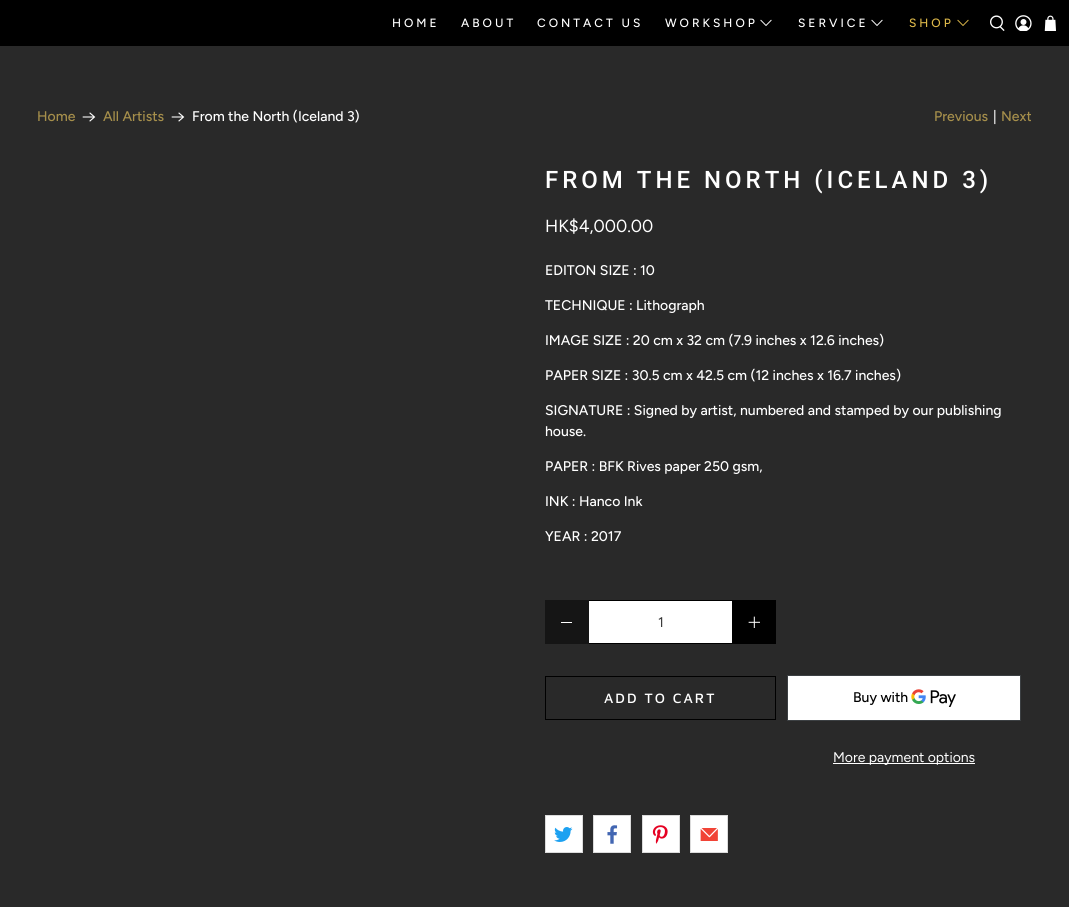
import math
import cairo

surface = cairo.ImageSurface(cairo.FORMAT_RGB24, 1069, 907)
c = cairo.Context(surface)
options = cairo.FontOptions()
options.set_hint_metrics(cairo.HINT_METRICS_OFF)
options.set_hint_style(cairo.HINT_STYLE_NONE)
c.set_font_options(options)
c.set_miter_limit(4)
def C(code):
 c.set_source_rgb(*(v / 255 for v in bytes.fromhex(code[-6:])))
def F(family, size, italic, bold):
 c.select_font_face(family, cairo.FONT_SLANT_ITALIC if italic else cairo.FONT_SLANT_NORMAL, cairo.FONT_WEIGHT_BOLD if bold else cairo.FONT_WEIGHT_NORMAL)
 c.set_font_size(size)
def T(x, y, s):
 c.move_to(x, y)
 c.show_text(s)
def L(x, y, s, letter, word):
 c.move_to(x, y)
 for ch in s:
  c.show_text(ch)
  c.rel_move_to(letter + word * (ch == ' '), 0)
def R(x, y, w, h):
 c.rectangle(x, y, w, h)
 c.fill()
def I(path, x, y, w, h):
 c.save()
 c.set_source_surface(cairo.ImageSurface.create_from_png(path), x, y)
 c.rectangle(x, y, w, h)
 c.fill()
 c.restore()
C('292929')
c.paint()
C('000000')
R(0,0,1069,46)
F('Figtree Medium',12,0,0)
C('ffffff')
L(392,27,'HOME',3,0)
L(461,27,'ABOUT',3,0)
L(537,27,'CONTACT US',3,0)
L(665,27,'WORKSHOP',3,0)
I('1.png',760,19,12,7)
L(798,27,'SERVICE',3,0)
I('1.png',871,19,12,7)
C('dcb749')
L(909,27,'SHOP',3,0)
I('2.png',957,19,12,7)
I('3.png',990,15,15,16)
I('4.png',1015,15,17,16)
I('5.png',1044,15,12,16)
F('Figtree Medium',14,0,0)
C('a68f4b')
T(37,121,'Home')
I('6.png',82,112,14,10)
T(103,121,'All Artists')
I('6.png',171,112,14,10)
C('ffffff')
T(192,121,'From the North (Iceland 3)')
C('a68f4b')
T(934,121,'Previous')
C('ffffff')
T(993,121,'|')
C('a68f4b')
T(1001,121,'Next')
F('Roboto Medium',24,0,0)
C('ffffff')
L(545,188,'FROM THE NORTH (ICELAND 3)',4,0)
F('Figtree',17.5,0,0)
T(545,232,'HK$4,000.00')
F('Figtree Medium',14,0,0)
T(545,275,'EDITON SIZE : 10')
T(545,310,'TECHNIQUE : Lithograph')
T(545,345,'IMAGE SIZE : 20 cm x 32 cm (7.9 inches x 12.6 inches)')
T(545,380,'PAPER SIZE : 30.5 cm x 42.5 cm (12 inches x 16.7 inches)')
T(545,415,'SIGNATURE : Signed by artist, numbered and stamped by our publishing')
T(545,436,'house.')
T(545,471,'PAPER : BFK Rives paper 250 gsm,')
T(545,506,'INK : Hanco Ink')
T(545,541,'YEAR : 2017')
C('151515')
R(545,600,44,44)
C('ffffff')
R(561,622,11,1)
R(589,601,143,42)
C('000000')
R(589,600,143,1)
R(589,643,143,1)
F('Figtree',14,0,0)
C('363636')
T(658,627,'1')
C('000000')
R(732,600,44,44)
I('7.png',748,616,12,12)
c.rectangle(545.5,676.5,230,43)
c.set_line_width(1)
c.stroke()
F('Maven Pro Medium',14,0,0)
C('ffffff')
L(604,703,'ADD TO CART',2,0)
R(788,676,232,44)
c.rectangle(787.5,675.5,233,45)
C('3c4043')
c.stroke()
F('Figtree Medium',14,0,0)
C('000000')
T(853,702,'Buy with')
I('8.png',911,689,45,18)
C('ffffff')
R(833,763,142,1)
F('Figtree',14,0,0)
T(833,762,'More payment options')
c.rectangle(545.5,815.5,37,37)
c.fill_preserve()
C('dbdbdb')
c.stroke()
I('9.png',554,827,19,15)
C('ffffff')
c.rectangle(593.5,815.5,37,37)
c.fill_preserve()
C('dbdbdb')
c.stroke()
I('10.png',607,825,11,19)
C('ffffff')
c.rectangle(642.5,815.5,37,37)
c.fill_preserve()
C('dbdbdb')
c.stroke()
I('11.png',652,825,16,19)
C('ffffff')
c.rectangle(690.5,815.5,37,37)
c.fill_preserve()
C('dbdbdb')
c.stroke()
I('12.png',700,828,18,13)
surface.write_to_png('o.png')
